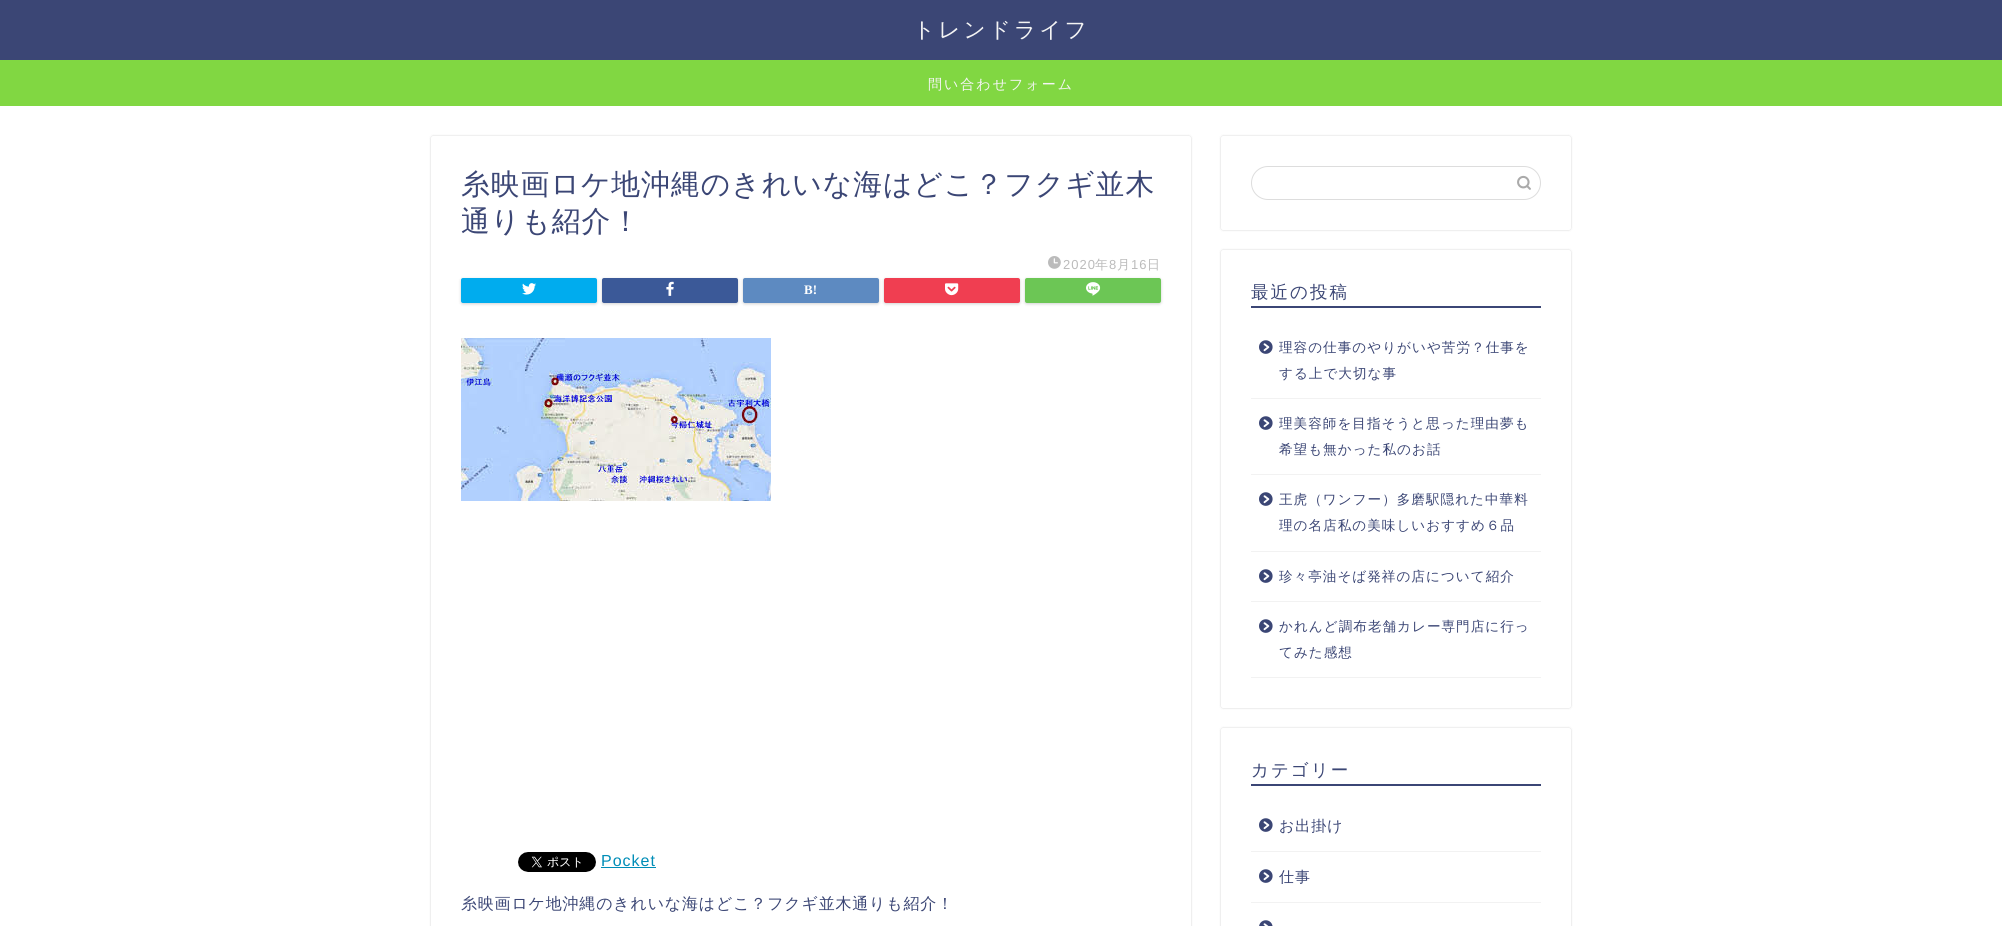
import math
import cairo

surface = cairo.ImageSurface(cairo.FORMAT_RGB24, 2002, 926)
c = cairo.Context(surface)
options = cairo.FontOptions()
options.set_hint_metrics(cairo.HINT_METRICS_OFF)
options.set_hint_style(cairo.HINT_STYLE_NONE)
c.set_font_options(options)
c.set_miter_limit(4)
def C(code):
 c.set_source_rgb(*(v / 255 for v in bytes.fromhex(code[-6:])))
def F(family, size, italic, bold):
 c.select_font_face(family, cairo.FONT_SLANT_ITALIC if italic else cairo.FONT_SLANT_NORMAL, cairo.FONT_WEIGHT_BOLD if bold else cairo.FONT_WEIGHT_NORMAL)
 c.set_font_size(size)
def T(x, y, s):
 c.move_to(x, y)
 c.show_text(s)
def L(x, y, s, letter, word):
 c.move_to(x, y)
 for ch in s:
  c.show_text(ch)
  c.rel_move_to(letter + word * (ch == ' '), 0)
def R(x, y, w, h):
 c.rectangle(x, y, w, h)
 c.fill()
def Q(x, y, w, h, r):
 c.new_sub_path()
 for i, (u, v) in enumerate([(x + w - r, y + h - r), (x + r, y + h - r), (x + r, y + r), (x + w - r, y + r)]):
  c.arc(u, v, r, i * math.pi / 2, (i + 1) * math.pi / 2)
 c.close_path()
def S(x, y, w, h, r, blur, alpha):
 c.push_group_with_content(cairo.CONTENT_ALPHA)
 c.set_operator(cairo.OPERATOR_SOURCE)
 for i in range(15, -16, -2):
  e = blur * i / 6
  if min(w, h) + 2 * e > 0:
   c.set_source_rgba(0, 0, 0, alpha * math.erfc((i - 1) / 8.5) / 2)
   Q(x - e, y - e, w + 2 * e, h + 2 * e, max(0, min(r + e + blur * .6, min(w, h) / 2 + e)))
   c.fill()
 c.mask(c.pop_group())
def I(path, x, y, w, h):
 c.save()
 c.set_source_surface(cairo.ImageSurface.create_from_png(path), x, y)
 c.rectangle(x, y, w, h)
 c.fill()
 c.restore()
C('ffffff')
c.paint()
C('3b4675')
R(0,0,2002,60)
F('WenQuanYi Zen Hei Medium',21.75,0,0)
C('f4f4f4')
L(913,37,'トレンドライフ',3,0)
C('81d742')
R(0,60,2002,46)
F('WenQuanYi Zen Hei Medium',14,0,0)
C('f4f4f4')
L(928,89,'問い合わせフォーム',2,0)
C('000000')
S(431,136,760,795,2,1,.18)
C('ffffff')
Q(431,136,760,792,2)
c.fill()
F('WenQuanYi Zen Hei Medium',28.8,0,0)
C('3b4675')
L(461,194,'糸映画ロケ地沖縄のきれいな海はどこ？フクギ並木',1,0)
L(461,231,'通りも紹介！',1,0)
I('1.png',1048,256,13,13)
F('Liberation Sans',13,0,0)
C('bbbbbb')
L(1063,269,'2020',1,0)
F('WenQuanYi Zen Hei Medium',13,0,0)
L(1095,269,'年',1,0)
F('Liberation Sans',13,0,0)
L(1109,269,'8',1,0)
F('WenQuanYi Zen Hei Medium',13,0,0)
L(1117,269,'月',1,0)
F('Liberation Sans',13,0,0)
L(1131,269,'16',1,0)
F('WenQuanYi Zen Hei Medium',13,0,0)
L(1147,269,'日',1,0)
C('000000')
S(461,279,136,25,2,1.5,.18)
C('00acee')
Q(462,279,134,23,1)
c.fill_preserve()
c.stroke()
I('2.png',522,283,14,12)
C('000000')
S(602,279,136,25,2,1.5,.18)
C('3b5998')
Q(603,279,134,23,1)
c.fill_preserve()
c.stroke()
I('3.png',666,281,8,15)
C('000000')
S(743,279,136,25,2,1.5,.18)
C('5d8ac1')
Q(744,279,134,23,1)
c.fill_preserve()
c.stroke()
F('Liberation Serif',13,0,1)
C('ffffff')
T(804,294,'B!')
C('000000')
S(884,279,136,25,2,1.5,.18)
C('f03e51')
Q(885,279,134,23,1)
c.fill_preserve()
c.stroke()
I('4.png',945,283,14,13)
C('000000')
S(1025,279,136,25,2,1.5,.18)
C('6cc655')
Q(1026,279,134,23,1)
c.fill_preserve()
c.stroke()
I('5.png',1086,282,15,14)
I('6.png',461,338,310,163)
I('7.png',518,852,78,20)
F('Liberation Sans',16,0,0)
C('008db7')
L(601,866,'Pocket',1,0)
R(601,867,55,1)
F('WenQuanYi Zen Hei Medium',16,0,0)
C('3b4675')
L(461,909,'糸映画ロケ地沖縄のきれいな海はどこ？フクギ並木通りも紹介！',.8,0)
C('000000')
S(1221,136,350,94,2,1,.18)
C('ffffff')
Q(1221,136,350,94,2)
c.fill()
Q(1251.5,166.5,289,33,16.5)
C('dddddd')
c.set_line_width(1)
c.stroke()
I('8.png',1517,175,14,15)
C('000000')
S(1221,250,350,458,2,1,.18)
C('ffffff')
Q(1221,250,350,458,2)
c.fill()
C('3b4675')
R(1251,306,290,2)
F('WenQuanYi Zen Hei Medium',17.5,0,0)
L(1251,298,'最近の投稿',2,0)
C('f2f2f2')
R(1251,398,290,1)
I('9.png',1259,340,14,14)
F('WenQuanYi Zen Hei Medium',13.6,0,0)
C('3b4675')
L(1279,352,'理容の仕事のやりがいや苦労？仕事を',1,0)
L(1279,378,'する上で大切な事',1,0)
C('f2f2f2')
R(1251,474,290,1)
I('9.png',1259,416,14,14)
C('3b4675')
L(1279,428,'理美容師を目指そうと思った理由夢も',1,0)
L(1279,454,'希望も無かった私のお話',1,0)
C('f2f2f2')
R(1251,551,290,1)
I('9.png',1259,492,14,14)
C('3b4675')
L(1279,504,'王虎（ワンフー）多磨駅隠れた中華料',1,0)
L(1279,530,'理の名店私の美味しいおすすめ６品',1,0)
C('f2f2f2')
R(1251,601,290,1)
I('9.png',1259,569,14,14)
C('3b4675')
L(1279,581,'珍々亭油そば発祥の店について紹介',1,0)
C('f2f2f2')
R(1251,677,290,1)
I('9.png',1259,619,14,14)
C('3b4675')
L(1279,631,'かれんど調布老舗カレー専門店に行っ',1,0)
L(1279,657,'てみた感想',1,0)
C('000000')
S(1221,728,350,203,2,1,.18)
C('ffffff')
Q(1221,728,350,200,2)
c.fill()
C('3b4675')
R(1251,784,290,2)
F('WenQuanYi Zen Hei Medium',17.5,0,0)
L(1251,776,'カテゴリー',2,0)
C('f2f2f2')
R(1251,851,290,1)
I('9.png',1259,818,14,14)
F('WenQuanYi Zen Hei Medium',15,0,0)
C('3b4675')
L(1279,831,'お出掛け',1,0)
C('f2f2f2')
R(1251,902,290,1)
I('9.png',1259,869,14,14)
C('3b4675')
L(1279,882,'仕事',1,0)
I('10.png',1259,920,14,6)
surface.write_to_png('o.png')
